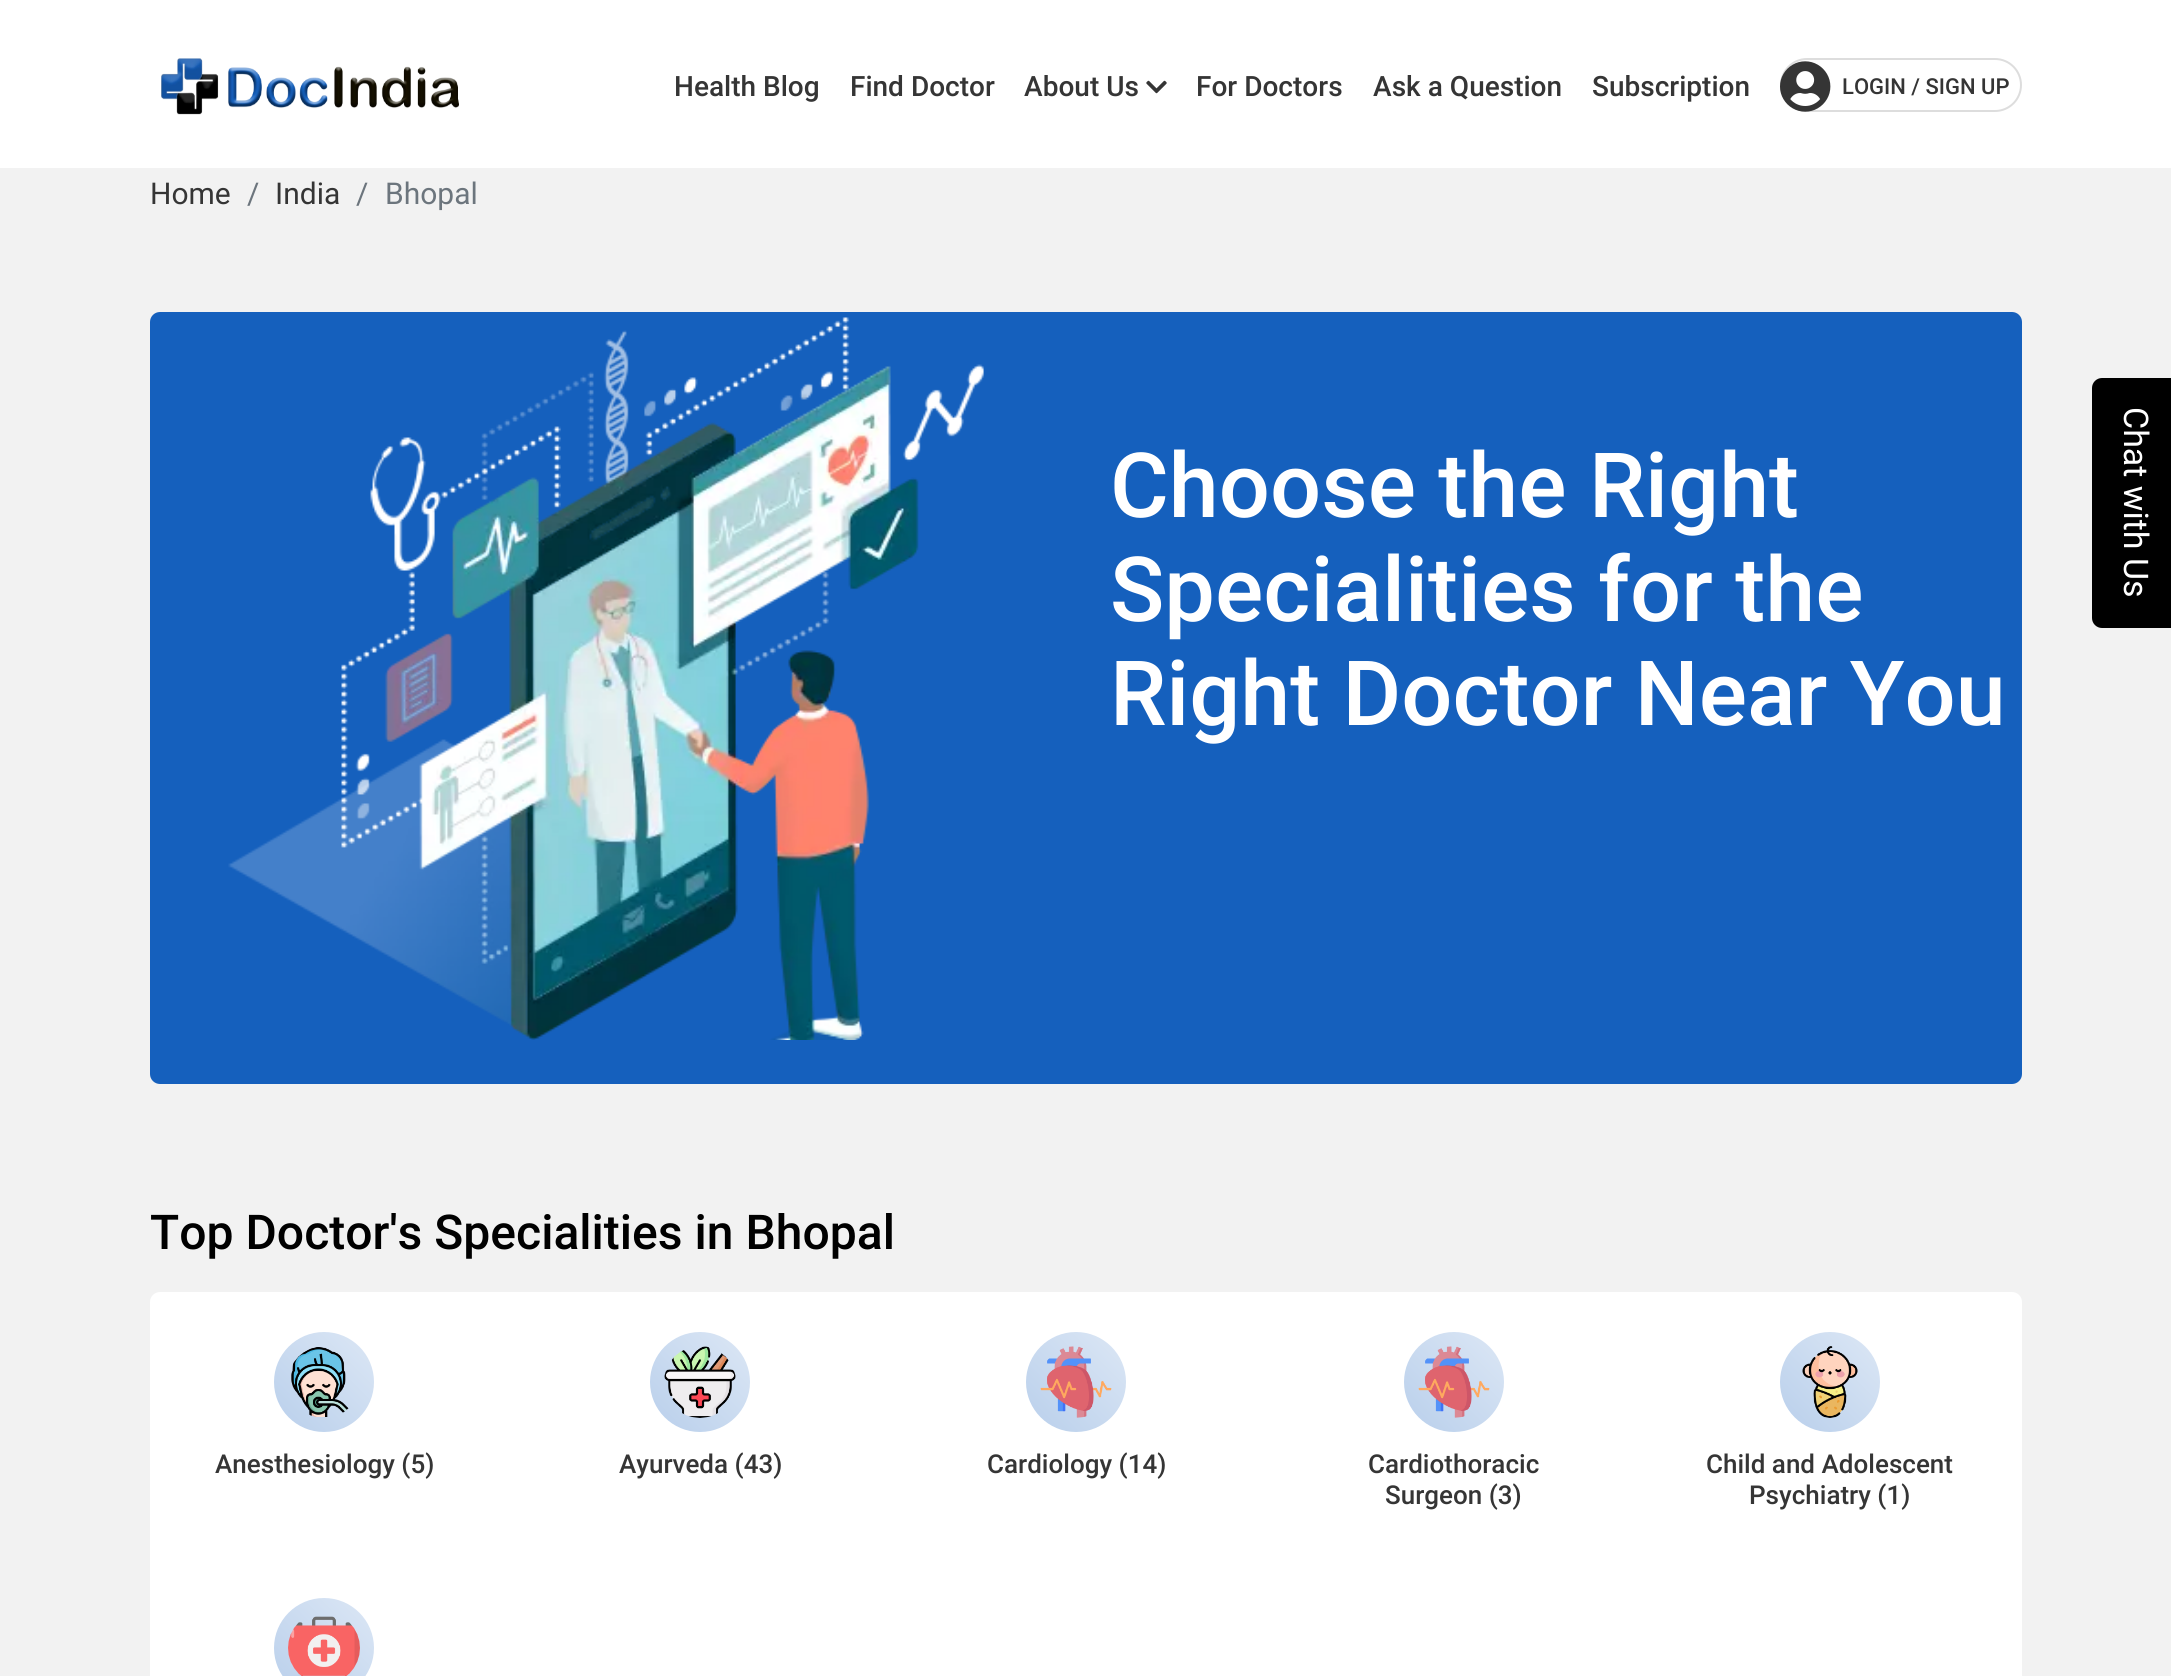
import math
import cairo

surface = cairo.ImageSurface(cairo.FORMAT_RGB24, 2171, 1676)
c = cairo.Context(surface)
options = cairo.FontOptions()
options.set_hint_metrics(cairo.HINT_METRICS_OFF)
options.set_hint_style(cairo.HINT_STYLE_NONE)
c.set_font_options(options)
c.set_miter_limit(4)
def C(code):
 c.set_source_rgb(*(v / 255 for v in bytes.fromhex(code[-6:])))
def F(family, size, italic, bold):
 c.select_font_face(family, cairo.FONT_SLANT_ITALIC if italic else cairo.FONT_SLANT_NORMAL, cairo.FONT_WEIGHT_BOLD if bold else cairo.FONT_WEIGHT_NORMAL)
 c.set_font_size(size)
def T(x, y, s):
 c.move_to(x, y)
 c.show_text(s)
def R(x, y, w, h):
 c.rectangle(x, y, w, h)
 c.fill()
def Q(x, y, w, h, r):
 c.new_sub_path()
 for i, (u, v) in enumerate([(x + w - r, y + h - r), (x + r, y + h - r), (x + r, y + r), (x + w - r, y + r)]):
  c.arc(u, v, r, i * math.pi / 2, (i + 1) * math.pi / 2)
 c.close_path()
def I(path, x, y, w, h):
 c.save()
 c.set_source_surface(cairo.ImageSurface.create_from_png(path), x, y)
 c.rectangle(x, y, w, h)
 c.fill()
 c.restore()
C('f2f2f2')
c.paint()
C('ffffff')
R(0,0,2171,168)
I('1.png',161,58,298,57)
F('Roboto Medium',28,0,0)
C('353535')
T(674,96,'Health Blog')
T(850,96,'Find Doctor')
T(1024,96,'About Us')
I('2.png',1146,80,21,14)
T(1196,96,'For Doctors')
T(1373,96,'Ask a Question')
T(1592,96,'Subscription')
Q(1781,59,240,52,26)
C('dddddd')
c.stroke()
I('3.png',1780,61,51,51)
F('Roboto Medium',22,0,0)
C('353535')
T(1842,94,'LOGIN / SIGN UP')
F('Roboto',30,0,0)
T(150,204,'Home')
C('6c757d')
T(247,204,'/')
C('353535')
T(275,204,'India')
C('6c757d')
T(356,204,'/')
T(385,204,'Bhopal')
C('1560bd')
Q(150,312,1872,772,10)
c.fill()
I('4.png',228,317,756,723)
F('Roboto Medium',90,0,0)
C('ffffff')
T(1110,517,'Choose the Right')
T(1110,621,'Specialities for the')
T(1110,725,'Right Doctor Near You')
C('000000')
c.new_path()
c.move_to(2102,378)
c.line_to(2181,378)
c.line_to(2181,628)
c.line_to(2102,628)
c.curve_to(2096.5,628,2092,623.5,2092,618)
c.line_to(2092,388)
c.curve_to(2092,382.5,2096.5,378,2102,378)
c.close_path()
c.fill()
F('Roboto',34,0,0)
C('ffffff')
c.save()
c.translate(2124,407)
c.rotate(90 * math.pi / 180)
T(0,0,'Chat with Us')
c.restore()
F('Roboto Medium',48,0,0)
C('000000')
T(150,1249,'Top Doctor\'s Specialities in Bhopal')
C('ffffff')
Q(150,1292,1872,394,10)
c.fill()
gradient = cairo.LinearGradient(274,1432,374,1332)
gradient.add_color_stop_rgba(0,0.725,0.812,0.922,1)
gradient.add_color_stop_rgba(1,0.863,0.906,0.961,1)
c.set_source(gradient)
c.arc(324,1382,50,0,2 * math.pi)
c.fill()
I('5.png',291,1347,58,70)
F('Roboto Medium',26,0,0)
C('353535')
T(215,1473,'Anesthesiology (5)')
gradient = cairo.LinearGradient(650,1432,750,1332)
gradient.add_color_stop_rgba(0,0.725,0.812,0.922,1)
gradient.add_color_stop_rgba(1,0.863,0.906,0.961,1)
c.set_source(gradient)
c.new_path()
c.arc(700,1382,50,0,2 * math.pi)
c.fill()
I('6.png',664,1346,72,72)
C('353535')
T(619,1473,'Ayurveda (43)')
gradient = cairo.LinearGradient(1026,1432,1126,1332)
gradient.add_color_stop_rgba(0,0.725,0.812,0.922,1)
gradient.add_color_stop_rgba(1,0.863,0.906,0.961,1)
c.set_source(gradient)
c.new_path()
c.arc(1076,1382,50,0,2 * math.pi)
c.fill()
I('7.png',1040,1346,72,72)
C('353535')
T(987,1473,'Cardiology (14)')
gradient = cairo.LinearGradient(1404,1432,1504,1332)
gradient.add_color_stop_rgba(0,0.725,0.812,0.922,1)
gradient.add_color_stop_rgba(1,0.863,0.906,0.961,1)
c.set_source(gradient)
c.new_path()
c.arc(1454,1382,50,0,2 * math.pi)
c.fill()
I('8.png',1418,1346,72,72)
C('353535')
T(1368,1473,'Cardiothoracic')
T(1385,1504,'Surgeon (3)')
gradient = cairo.LinearGradient(1780,1432,1880,1332)
gradient.add_color_stop_rgba(0,0.725,0.812,0.922,1)
gradient.add_color_stop_rgba(1,0.863,0.906,0.961,1)
c.set_source(gradient)
c.new_path()
c.arc(1830,1382,50,0,2 * math.pi)
c.fill()
I('9.png',1802,1346,56,72)
C('353535')
T(1706,1473,'Child and Adolescent')
T(1749,1504,'Psychiatry (1)')
gradient = cairo.LinearGradient(274,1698,374,1598)
gradient.add_color_stop_rgba(0,0.725,0.812,0.922,1)
gradient.add_color_stop_rgba(1,0.863,0.906,0.961,1)
c.set_source(gradient)
c.new_path()
c.arc(324,1648,50,0,2 * math.pi)
c.fill()
I('10.png',288,1616,72,60)
surface.write_to_png('o.png')
